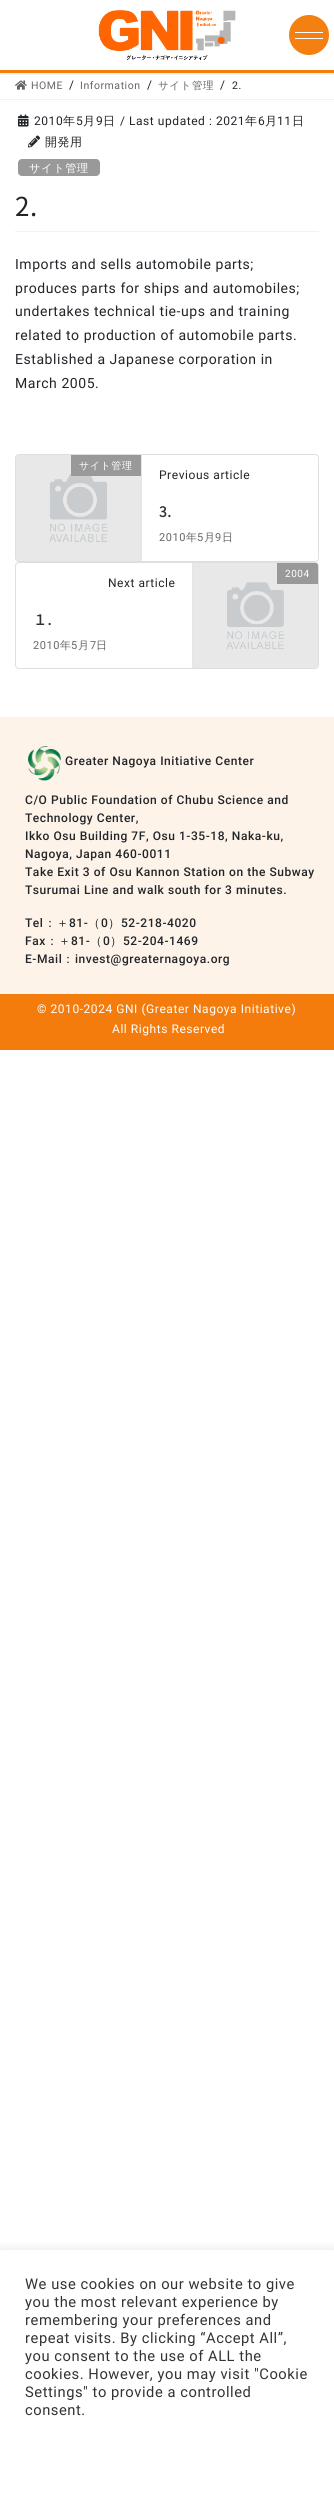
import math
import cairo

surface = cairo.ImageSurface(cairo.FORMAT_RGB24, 334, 2495)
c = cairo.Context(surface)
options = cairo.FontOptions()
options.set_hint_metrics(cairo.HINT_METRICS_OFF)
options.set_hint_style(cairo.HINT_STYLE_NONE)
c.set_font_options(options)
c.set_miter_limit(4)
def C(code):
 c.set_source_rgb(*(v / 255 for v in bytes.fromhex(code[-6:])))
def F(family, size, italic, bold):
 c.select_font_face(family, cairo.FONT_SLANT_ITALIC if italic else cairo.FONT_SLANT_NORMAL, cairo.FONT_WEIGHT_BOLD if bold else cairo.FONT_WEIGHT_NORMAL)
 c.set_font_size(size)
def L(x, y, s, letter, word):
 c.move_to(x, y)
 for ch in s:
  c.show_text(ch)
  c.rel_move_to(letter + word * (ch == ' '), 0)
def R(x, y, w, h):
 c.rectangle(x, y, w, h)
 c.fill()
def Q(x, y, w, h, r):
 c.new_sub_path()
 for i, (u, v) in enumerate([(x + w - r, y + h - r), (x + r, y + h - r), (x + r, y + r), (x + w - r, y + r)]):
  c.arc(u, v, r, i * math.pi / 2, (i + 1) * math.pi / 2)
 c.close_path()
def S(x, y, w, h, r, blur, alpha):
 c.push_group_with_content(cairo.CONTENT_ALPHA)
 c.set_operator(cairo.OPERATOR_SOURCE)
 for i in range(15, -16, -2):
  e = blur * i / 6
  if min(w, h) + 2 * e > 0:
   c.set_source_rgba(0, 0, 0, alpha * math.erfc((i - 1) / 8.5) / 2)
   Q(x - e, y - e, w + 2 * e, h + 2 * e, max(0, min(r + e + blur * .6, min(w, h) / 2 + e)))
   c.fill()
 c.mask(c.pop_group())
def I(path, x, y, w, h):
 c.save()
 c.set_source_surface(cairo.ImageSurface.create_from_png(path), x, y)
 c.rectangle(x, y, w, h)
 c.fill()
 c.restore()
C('ffffff')
c.paint()
c.save()
c.rectangle(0,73,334,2)
c.clip()
C('000000')
S(0,1,334,73,0,1.5,.1)
c.restore()
C('f57d0d')
R(0,70,334,3)
I('1.png',98,10,138,50)
C('f38011')
c.arc(309,35,20,0,2 * math.pi)
c.fill()
C('ffffff')
R(295,32,28,1)
R(295,38,28,1)
C('f2f2f2')
R(0,99,334,1)
I('2.png',15,80,12,10)
F('Roboto',10.5,0,0)
C('666666')
L(31,89,'HOME',.55,0)
F('Roboto',12,0,0)
C('212529')
L(69,89,'/',.55,0)
F('Roboto',10.5,0,0)
C('666666')
L(80,89,'Information',.55,0)
F('Roboto',12,0,0)
C('212529')
L(147,89,'/',.55,0)
F('WenQuanYi Zen Hei Medium',10.5,0,0)
C('666666')
L(158,89,'サイト管理',.55,0)
F('Roboto',12,0,0)
C('212529')
L(220,89,'/',.55,0)
F('Roboto',10.5,0,0)
L(232,89,'2.',.55,0)
C('f2f2f2')
R(15,231,304,1)
I('3.png',18,114,11,13)
F('Roboto',12,0,0)
C('212529')
L(34,125,'2010',.55,0)
F('WenQuanYi Zen Hei Medium',12,0,0)
L(63,125,'年',.55,0)
F('Roboto',12,0,0)
L(76,125,'5',.55,0)
F('WenQuanYi Zen Hei Medium',12,0,0)
L(83,125,'月',.55,0)
F('Roboto',12,0,0)
L(96,125,'9',.55,0)
F('WenQuanYi Zen Hei Medium',12,0,0)
L(103,125,'日',.55,0)
F('Roboto',12,0,0)
L(120,125,'/ Last updated : 2021',.55,0)
F('WenQuanYi Zen Hei Medium',12,0,0)
L(245,125,'年',.55,0)
F('Roboto',12,0,0)
L(258,125,'6',.55,0)
F('WenQuanYi Zen Hei Medium',12,0,0)
L(265,125,'月',.55,0)
F('Roboto',12,0,0)
L(277,125,'11',.55,0)
F('WenQuanYi Zen Hei Medium',12,0,0)
L(292,125,'日',.55,0)
I('4.png',28,135,12,13)
L(45,146,'開発用',.55,0)
C('999999')
Q(18,159,82,17,4)
c.fill()
F('WenQuanYi Zen Hei Medium',11.25,0,0)
C('ffffff')
L(29,172,'サイト管理',.55,0)
F('Noto Sans JP Thin',26,0,0)
C('212529')
L(15,216,'2.',.55,0)
F('Roboto',14,0,0)
L(15,269,'Imports and sells automobile parts;',.55,0)
L(15,293,'produces parts for ships and automobiles;',.55,0)
L(15,316,'undertakes technical tie-ups and training',.55,0)
L(15,340,'related to production of automobile parts.',.55,0)
L(15,364,'Established a Japanese corporation in',.55,0)
L(15,388,'March 2005.',.55,0)
Q(15.5,454.5,303,107,3.5)
C('dfdfdf')
c.set_line_width(1)
c.stroke()
I('5.png',16,455,125,106)
C('e5e5e5')
R(141,455,1,106)
C('999999')
R(71,455,70,21)
F('WenQuanYi Zen Hei Medium',10,0,0)
C('ffffff')
L(79,469,'サイト管理',.55,0)
F('Roboto',12,0,0)
C('212529')
L(159,479,'Previous article',.55,0)
F('Noto Sans JP',14,0,1)
C('333333')
L(159,517,'3.',.55,0)
F('Roboto',11,0,0)
C('666666')
L(159,541,'2010',.55,0)
F('WenQuanYi Zen Hei Medium',11,0,0)
L(186,541,'年',.55,0)
F('Roboto',11,0,0)
L(197,541,'5',.55,0)
F('WenQuanYi Zen Hei Medium',11,0,0)
L(204,541,'月',.55,0)
F('Roboto',11,0,0)
L(215,541,'9',.55,0)
F('WenQuanYi Zen Hei Medium',11,0,0)
L(222,541,'日',.55,0)
Q(15.5,562.5,303,106,3.5)
C('dfdfdf')
c.stroke()
I('6.png',193,563,125,105)
C('e5e5e5')
R(192,563,1,105)
C('999999')
c.new_path()
c.move_to(277,563)
c.line_to(315.5,563)
c.curve_to(317,563,318,564,318,565.5)
c.line_to(318,584)
c.line_to(277,584)
c.close_path()
c.fill()
F('Roboto',10,0,0)
C('ffffff')
L(285,577,'2004',.55,0)
F('Roboto',12,0,0)
C('212529')
L(108,587,'Next article',.55,0)
F('Noto Sans JP',14,0,1)
C('333333')
L(33,625,'１.',.55,0)
F('Roboto',11,0,0)
C('666666')
L(33,649,'2010',.55,0)
F('WenQuanYi Zen Hei Medium',11,0,0)
L(60,649,'年',.55,0)
F('Roboto',11,0,0)
L(71,649,'5',.55,0)
F('WenQuanYi Zen Hei Medium',11,0,0)
L(78,649,'月',.55,0)
F('Roboto',11,0,0)
L(90,649,'7',.55,0)
F('WenQuanYi Zen Hei Medium',11,0,0)
L(96,649,'日',.55,0)
C('fef3e9')
R(0,717,334,277)
I('7.png',28,746,33,35)
F('Roboto Medium',12,0,0)
C('212529')
L(65,765,'Greater Nagoya Initiative Center',.55,0)
L(25,804,'C/O Public Foundation of Chubu Science and',.55,0)
L(25,822,'Technology Center,',.55,0)
L(25,840,'Ikko Osu Building 7F, Osu 1-35-18, Naka-ku,',.55,0)
L(25,858,'Nagoya, Japan 460-0011',.55,0)
L(25,876,'Take Exit 3 of Osu Kannon Station on the Subway',.55,0)
L(25,894,'Tsurumai Line and walk south for 3 minutes.',.55,0)
L(25,927,'Tel',.55,0)
F('WenQuanYi Zen Hei Medium',12,0,0)
L(44,927,'：＋',.55,0)
F('Roboto Medium',12,0,0)
L(69,927,'81-',.55,0)
F('WenQuanYi Zen Hei Medium',12,0,0)
L(88,927,'（',.55,0)
F('Roboto Medium',12,0,0)
L(101,927,'0',.55,0)
F('WenQuanYi Zen Hei Medium',12,0,0)
L(108,927,'）',.55,0)
F('Roboto Medium',12,0,0)
L(121,927,'52-218-4020',.55,0)
L(25,945,'Fax',.55,0)
F('WenQuanYi Zen Hei Medium',12,0,0)
L(46,945,'：＋',.55,0)
F('Roboto Medium',12,0,0)
L(71,945,'81-',.55,0)
F('WenQuanYi Zen Hei Medium',12,0,0)
L(90,945,'（',.55,0)
F('Roboto Medium',12,0,0)
L(103,945,'0',.55,0)
F('WenQuanYi Zen Hei Medium',12,0,0)
L(110,945,'）',.55,0)
F('Roboto Medium',12,0,0)
L(123,945,'52-204-1469',.55,0)
L(25,963,'E-Mail',.55,0)
F('WenQuanYi Zen Hei Medium',12,0,0)
L(62,963,'：',.55,0)
F('Roboto Medium',12,0,0)
L(75,963,'invest@greaternagoya.org',.55,0)
C('f47c0d')
R(0,994,334,56)
F('Roboto',12,0,0)
C('ffffff')
L(37,1013,'© 2010-2024 GNI (Greater Nagoya Initiative)',.55,0)
L(112,1033,'All Rights Reserved',.55,0)
c.save()
c.rectangle(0,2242,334,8)
c.clip()
C('acabab')
S(0,2249,334,245,0,5,.3)
c.restore()
F('Roboto',14.7,0,0)
C('333333')
L(25,2289,'We use cookies on our website to give',.55,0)
L(25,2307,'you the most relevant experience by',.55,0)
L(25,2325,'remembering your preferences and',.55,0)
L(25,2343,'repeat visits. By clicking “Accept All”,',.55,0)
L(25,2361,'you consent to the use of ALL the',.55,0)
L(25,2379,'cookies. However, you may visit "Cookie',.55,0)
L(25,2397,'Settings" to provide a controlled',.55,0)
L(25,2415,'consent.',.55,0)
surface.write_to_png('o.png')
